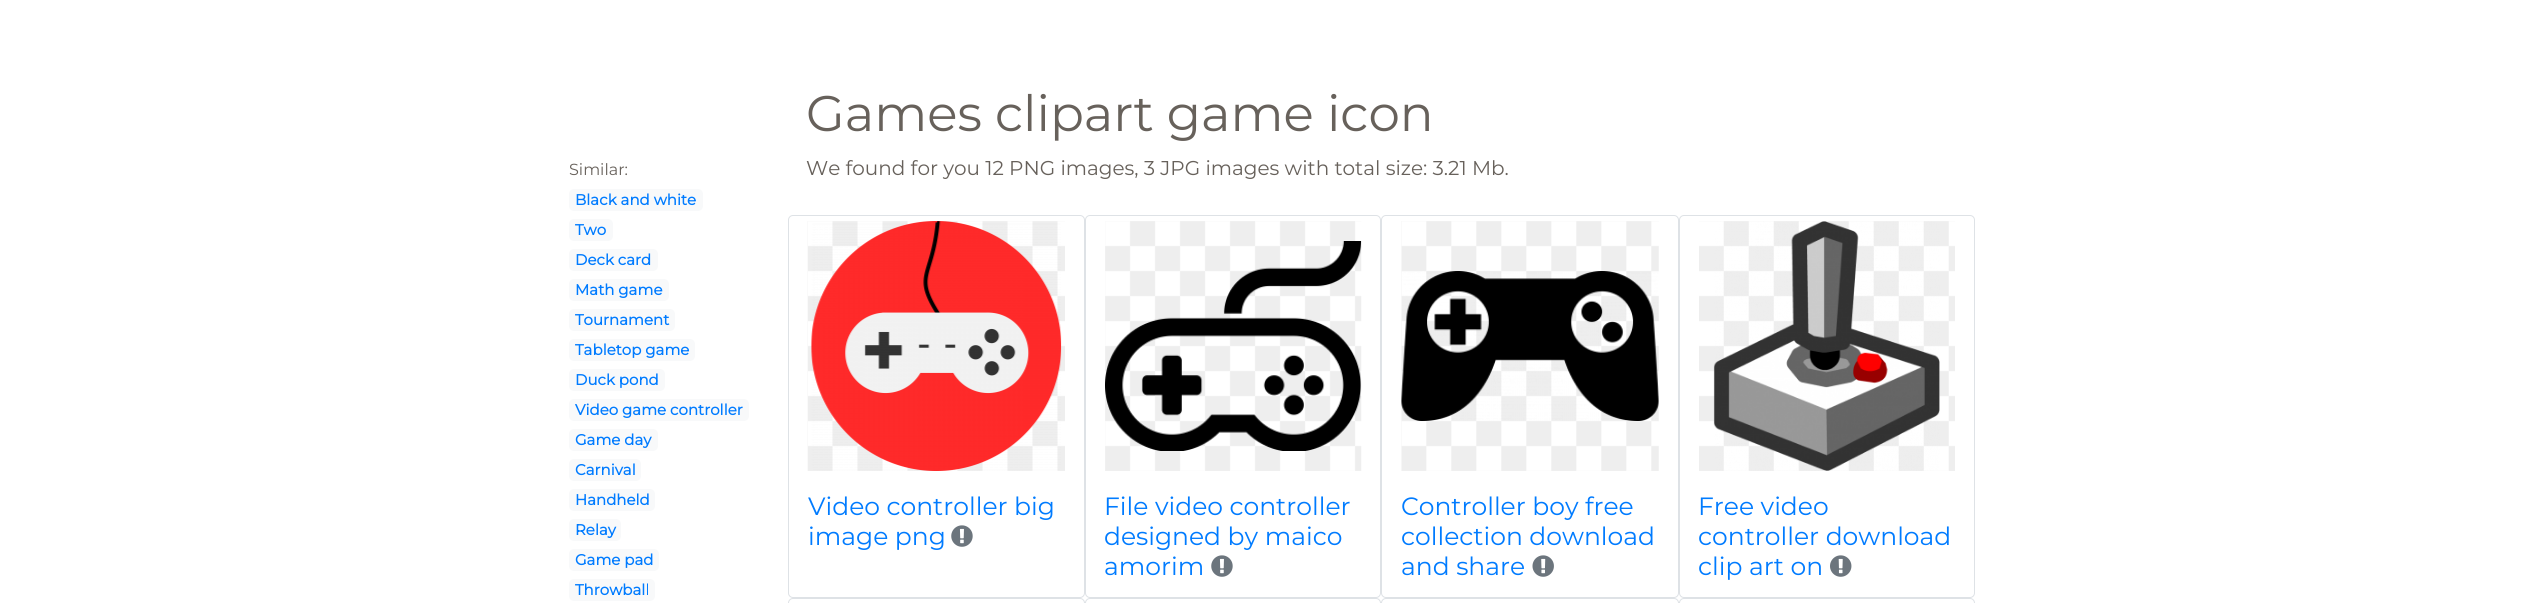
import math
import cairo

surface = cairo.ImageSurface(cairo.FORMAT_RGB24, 2524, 603)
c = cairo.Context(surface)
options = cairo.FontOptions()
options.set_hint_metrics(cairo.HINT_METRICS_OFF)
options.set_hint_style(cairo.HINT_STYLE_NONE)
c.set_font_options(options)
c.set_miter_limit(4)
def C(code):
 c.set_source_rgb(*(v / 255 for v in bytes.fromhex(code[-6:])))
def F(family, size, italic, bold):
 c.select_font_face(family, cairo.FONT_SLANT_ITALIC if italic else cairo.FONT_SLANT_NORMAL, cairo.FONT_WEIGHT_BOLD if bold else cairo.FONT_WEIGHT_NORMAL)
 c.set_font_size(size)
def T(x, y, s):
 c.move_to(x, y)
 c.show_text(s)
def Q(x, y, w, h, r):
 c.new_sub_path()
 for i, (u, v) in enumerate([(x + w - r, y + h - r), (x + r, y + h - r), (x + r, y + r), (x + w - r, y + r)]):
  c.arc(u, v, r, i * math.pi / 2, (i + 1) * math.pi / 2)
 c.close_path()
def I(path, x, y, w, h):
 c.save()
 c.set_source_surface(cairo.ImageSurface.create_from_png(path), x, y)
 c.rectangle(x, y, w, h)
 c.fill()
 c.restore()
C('ffffff')
c.paint()
F('Montserrat Thin',50,0,0)
C('67615b')
T(806,131,'Games clipart game icon')
F('Montserrat Thin',16,0,0)
T(569,175,'Similar:')
C('f8f9fa')
Q(569,189,134,22,5)
c.fill()
F('Montserrat',15,0,1)
C('007bff')
T(575,205,'Black and white')
C('f8f9fa')
Q(569,219,44,22,5)
c.fill()
C('007bff')
T(575,235,'Two')
C('f8f9fa')
Q(569,249,89,22,5)
c.fill()
C('007bff')
T(575,265,'Deck card')
C('f8f9fa')
Q(569,279,100,22,5)
c.fill()
C('007bff')
T(575,295,'Math game')
C('f8f9fa')
Q(569,309,106,22,5)
c.fill()
C('007bff')
T(575,325,'Tournament')
C('f8f9fa')
Q(569,339,126,22,5)
c.fill()
C('007bff')
T(575,355,'Tabletop game')
C('f8f9fa')
Q(569,369,96,22,5)
c.fill()
C('007bff')
T(575,385,'Duck pond')
C('f8f9fa')
Q(569,399,180,22,5)
c.fill()
C('007bff')
T(575,415,'Video game controller')
C('f8f9fa')
Q(569,429,89,22,5)
c.fill()
C('007bff')
T(575,445,'Game day')
C('f8f9fa')
Q(569,459,72,22,5)
c.fill()
C('007bff')
T(575,475,'Carnival')
C('f8f9fa')
Q(569,489,86,22,5)
c.fill()
C('007bff')
T(575,505,'Handheld')
C('f8f9fa')
Q(569,519,52,22,5)
c.fill()
C('007bff')
T(575,535,'Relay')
C('f8f9fa')
Q(569,549,90,22,5)
c.fill()
C('007bff')
T(575,565,'Game pad')
C('f8f9fa')
Q(569,579,86,22,5)
c.fill()
C('007bff')
T(575,595,'Throwball')
F('Montserrat Thin',20,0,0)
C('67615b')
T(806,175,'We found for you 12 PNG images, 3 JPG images with total size: 3.21 Mb.')
Q(788.5,215.5,296,382,4.5)
C('dee2e6')
c.set_line_width(1)
c.stroke()
I('1.png',807,221,258,250)
I('2.png',811,221,251,250)
F('Montserrat Thin',25,0,0)
C('007bff')
T(808,515,'Video controller big')
T(808,545,'image png')
I('3.png',951,525,22,22)
Q(1085.5,215.5,295,382,4.5)
C('dee2e6')
c.stroke()
I('4.png',1105,221,257,250)
I('5.png',1105,241,257,210)
C('007bff')
T(1104,515,'File video controller')
T(1104,545,'designed by maico')
T(1104,575,'amorim')
I('3.png',1211,555,22,22)
Q(1381.5,215.5,297,382,4.5)
C('dee2e6')
c.stroke()
I('6.png',1401,221,258,250)
I('7.png',1401,271,258,150)
C('007bff')
T(1401,515,'Controller boy free')
T(1401,545,'collection download')
T(1401,575,'and share')
I('8.png',1532,555,22,22)
Q(1679.5,215.5,295,382,4.5)
C('dee2e6')
c.stroke()
I('9.png',1699,221,256,250)
I('10.png',1713,221,227,250)
C('007bff')
T(1698,515,'Free video')
T(1698,545,'controller download')
T(1698,575,'clip art on')
I('11.png',1830,555,22,22)
Q(788.5,598.5,296,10,4.5)
C('dee2e6')
c.stroke()
Q(1085.5,598.5,295,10,4.5)
c.stroke()
Q(1381.5,598.5,297,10,4.5)
c.stroke()
Q(1679.5,598.5,295,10,4.5)
c.stroke()
surface.write_to_png('o.png')
